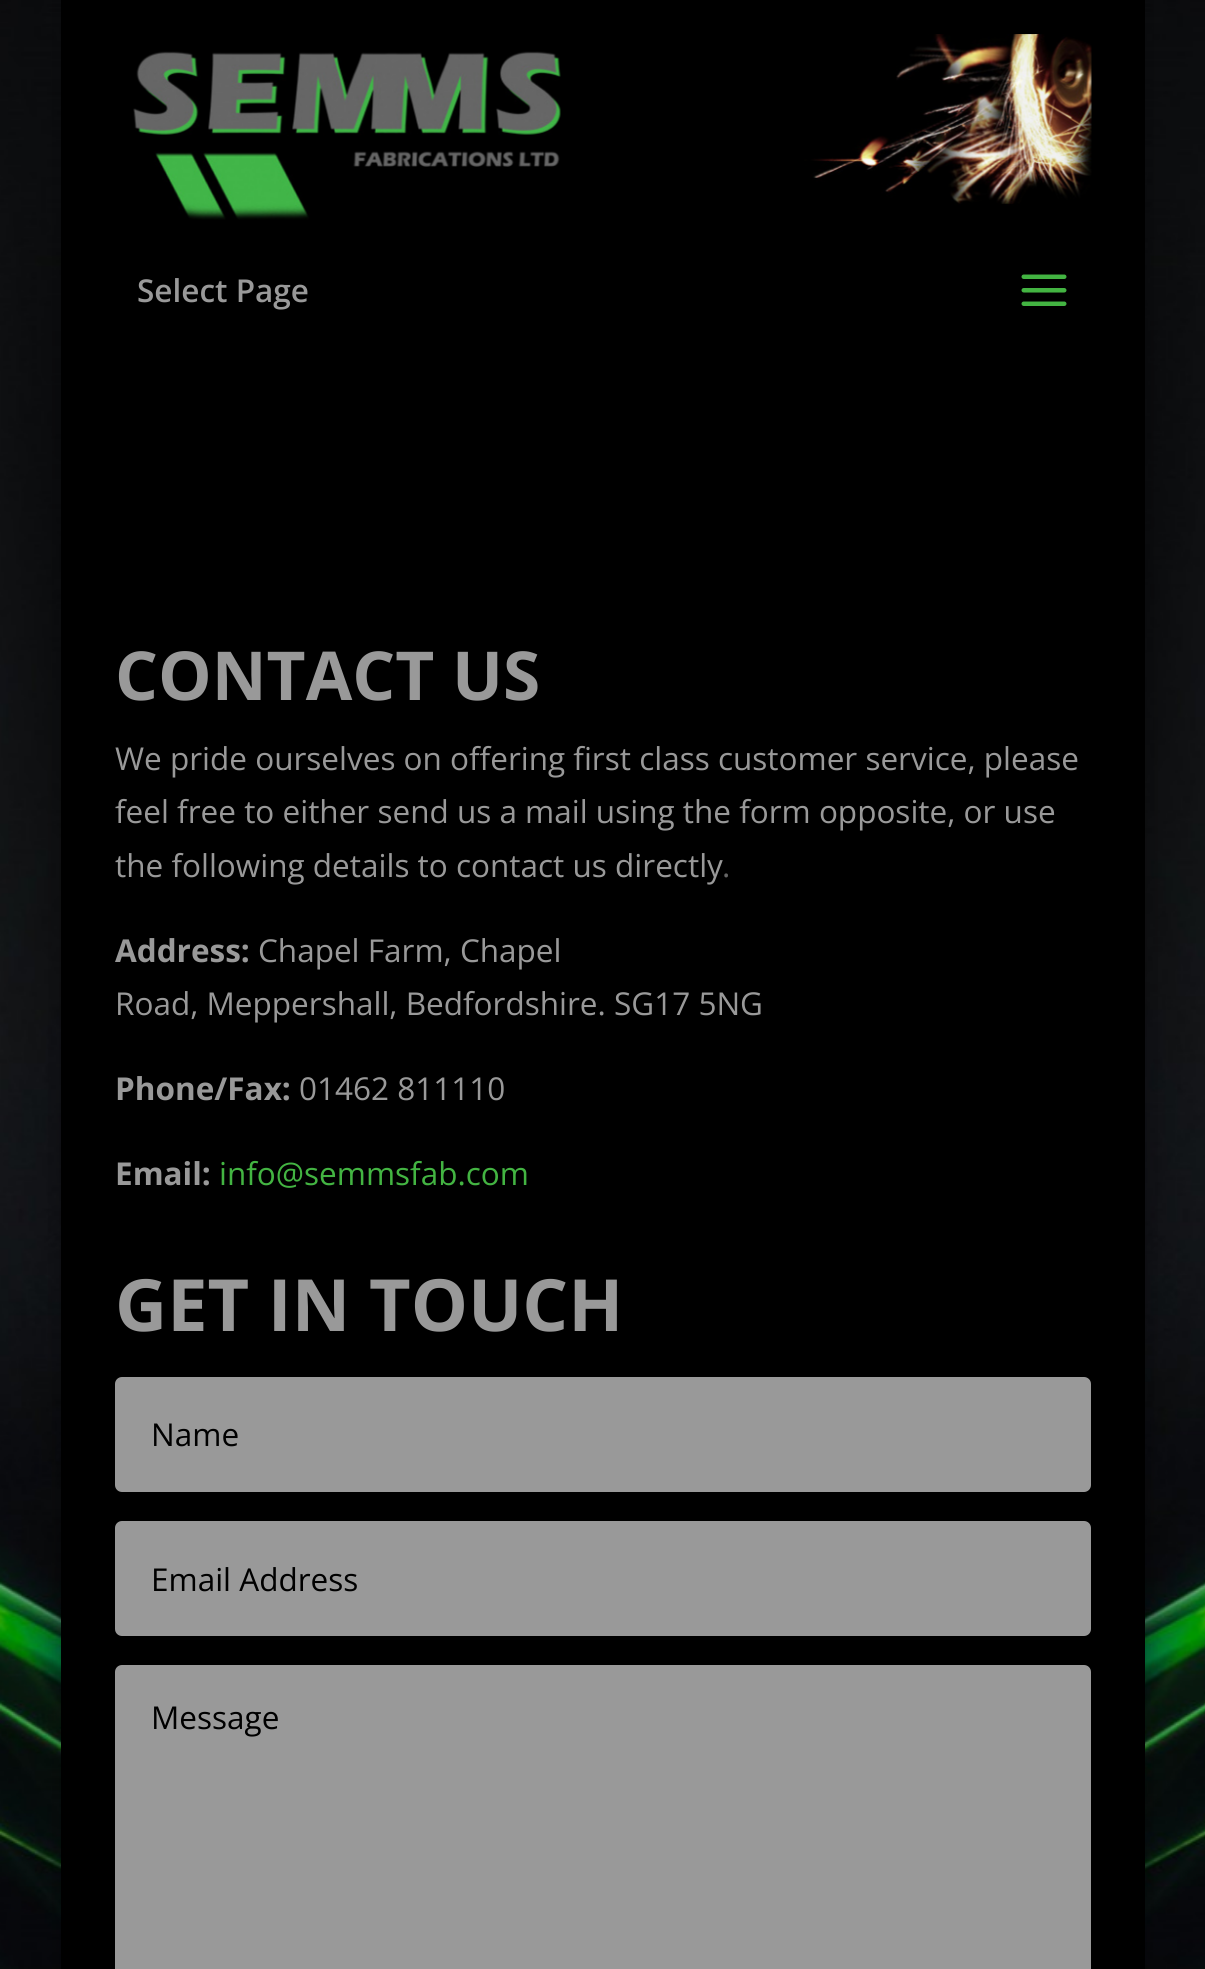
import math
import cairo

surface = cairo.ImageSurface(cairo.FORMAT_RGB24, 1205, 1969)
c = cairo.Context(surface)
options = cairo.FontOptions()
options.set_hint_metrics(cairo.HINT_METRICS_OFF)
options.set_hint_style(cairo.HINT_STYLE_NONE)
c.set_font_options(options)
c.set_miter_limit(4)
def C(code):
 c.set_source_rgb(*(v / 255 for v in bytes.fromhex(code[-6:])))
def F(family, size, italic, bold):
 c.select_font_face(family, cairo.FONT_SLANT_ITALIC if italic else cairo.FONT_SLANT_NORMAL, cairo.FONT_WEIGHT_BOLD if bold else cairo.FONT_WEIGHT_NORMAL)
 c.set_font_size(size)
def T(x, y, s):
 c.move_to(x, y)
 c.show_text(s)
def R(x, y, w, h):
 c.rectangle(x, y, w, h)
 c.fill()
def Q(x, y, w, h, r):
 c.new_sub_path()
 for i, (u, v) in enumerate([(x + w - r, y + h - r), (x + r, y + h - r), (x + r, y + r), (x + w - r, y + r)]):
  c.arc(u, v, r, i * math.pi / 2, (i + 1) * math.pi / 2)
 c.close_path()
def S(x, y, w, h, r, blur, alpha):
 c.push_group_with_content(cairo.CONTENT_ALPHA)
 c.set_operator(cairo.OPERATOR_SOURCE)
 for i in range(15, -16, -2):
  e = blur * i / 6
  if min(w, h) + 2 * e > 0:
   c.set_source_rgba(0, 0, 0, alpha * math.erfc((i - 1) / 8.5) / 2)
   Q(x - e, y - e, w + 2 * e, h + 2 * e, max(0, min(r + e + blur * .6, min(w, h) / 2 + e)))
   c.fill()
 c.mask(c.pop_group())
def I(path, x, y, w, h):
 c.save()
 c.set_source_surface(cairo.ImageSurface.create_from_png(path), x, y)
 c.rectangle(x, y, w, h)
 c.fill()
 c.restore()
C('ffffff')
c.paint()
I('1.png',0,0,1205,1969)
C('000000')
S(61,-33,1084,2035,0,11,.2)
C('000000')
R(61,0,1084,1969)
I('2.png',133,34,959,186)
F('Open Sans SemiBold',31.5,0,0)
C('999999')
T(137,302,'Select Page')
I('3.png',1021,274,46,32)
F('Open Sans',67.5,0,1)
T(115,700,'CONTACT US')
F('Open Sans',31.5,0,0)
T(115,770,'We pride ourselves on offering first class customer service, please')
T(115,823,'feel free to either send us a mail using the form opposite, or use')
T(115,877,'the following details to contact us directly')
C('666666')
T(722,877,'.')
F('Open Sans',31.5,0,1)
C('999999')
T(115,962,'Address:')
F('Open Sans',31.5,0,0)
T(258,962,'Chapel Farm, Chapel')
T(115,1015,'Road, Meppershall, Bedfordshire. SG17 5NG')
F('Open Sans',31.5,0,1)
T(115,1100,'Phone/Fax:')
F('Open Sans',31.5,0,0)
T(299,1100,'01462 811110')
F('Open Sans',31.5,0,1)
T(115,1185,'Email:')
F('Open Sans',31.5,0,0)
C('43b442')
T(219,1185,'info@semmsfab.com')
F('Open Sans',72,0,1)
C('999999')
T(115,1331,'GET IN TOUCH')
Q(115,1377,976,115,7)
c.fill()
F('Open Sans',31.5,0,0)
C('000000')
T(151,1446,'Name')
C('999999')
Q(115,1521,976,115,7)
c.fill()
C('000000')
T(151,1591,'Email Address')
C('999999')
Q(115,1665,976,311,7)
c.fill()
C('000000')
T(151,1729,'Message')
surface.write_to_png('o.png')
